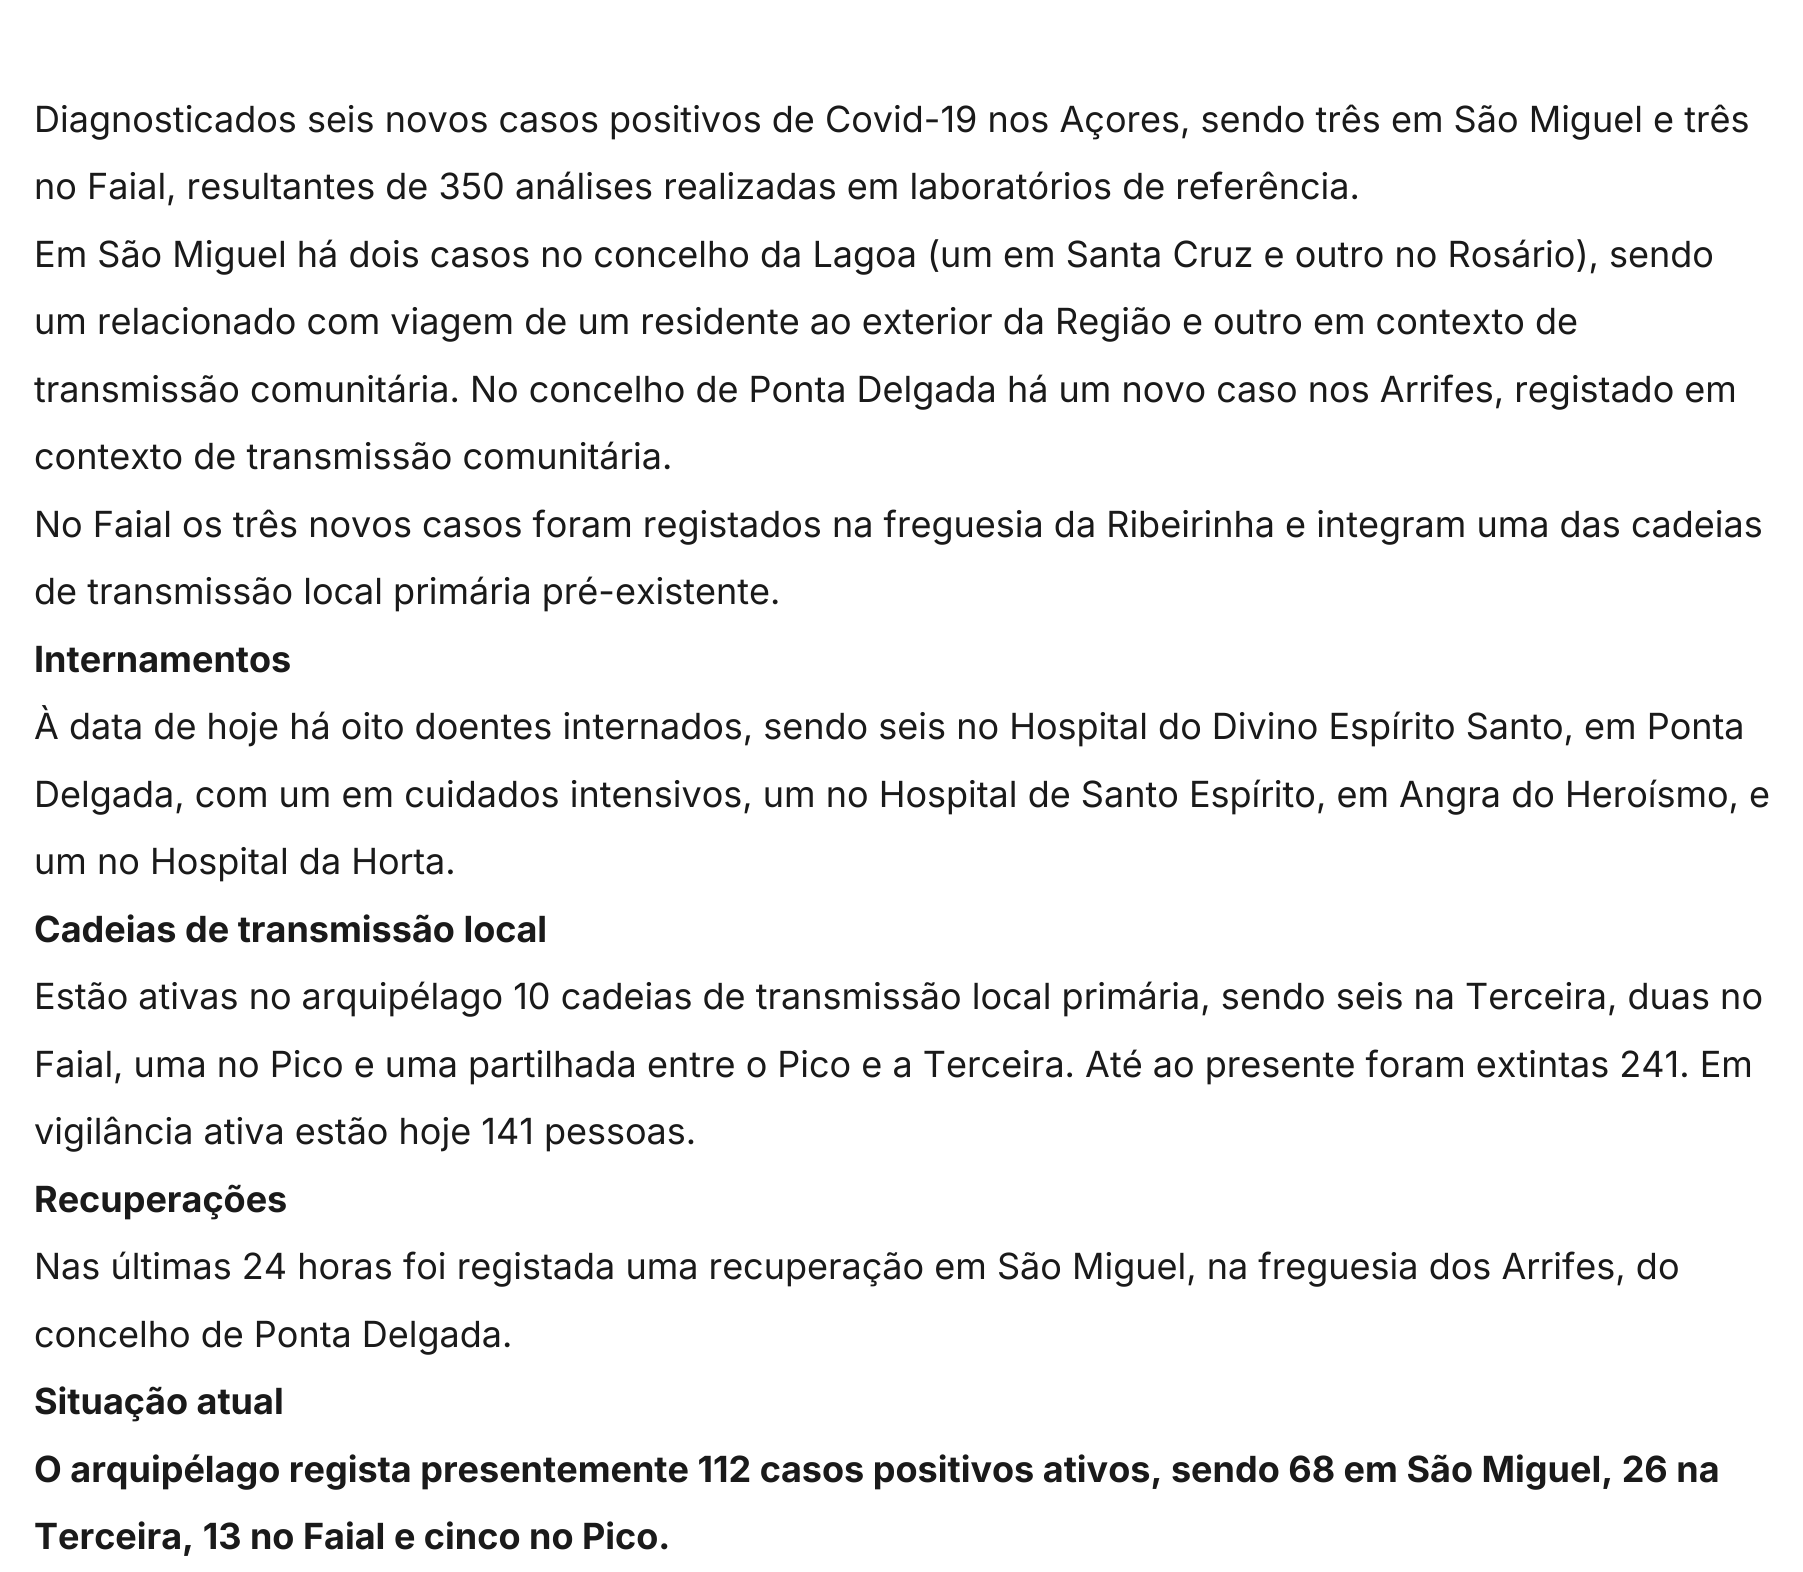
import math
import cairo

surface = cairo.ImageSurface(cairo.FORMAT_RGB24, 1803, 1572)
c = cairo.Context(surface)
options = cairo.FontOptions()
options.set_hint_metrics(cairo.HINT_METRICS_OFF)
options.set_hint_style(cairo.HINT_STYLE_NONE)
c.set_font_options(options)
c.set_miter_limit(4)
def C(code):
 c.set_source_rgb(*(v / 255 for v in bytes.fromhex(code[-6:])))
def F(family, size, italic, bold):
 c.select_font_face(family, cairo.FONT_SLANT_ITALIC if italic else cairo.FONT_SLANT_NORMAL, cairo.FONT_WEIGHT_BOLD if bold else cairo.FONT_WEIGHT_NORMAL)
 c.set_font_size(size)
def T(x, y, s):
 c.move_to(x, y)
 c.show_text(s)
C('ffffff')
c.paint()
F('Inter',36,0,0)
C('1a1a1a')
T(34,132,'Diagnosticados seis novos casos positivos de Covid-19 nos Açores, sendo três em São Miguel e três')
T(34,199,'no Faial, resultantes de 350 análises realizadas em laboratórios de referência.')
T(34,267,'Em São Miguel há dois casos no concelho da Lagoa (um em Santa Cruz e outro no Rosário), sendo')
T(34,334,'um relacionado com viagem de um residente ao exterior da Região e outro em contexto de')
T(34,402,'transmissão comunitária. No concelho de Ponta Delgada há um novo caso nos Arrifes, registado em')
T(34,469,'contexto de transmissão comunitária.')
T(34,537,'No Faial os três novos casos foram registados na freguesia da Ribeirinha e integram uma das cadeias')
T(34,604,'de transmissão local primária pré-existente.')
F('Inter',36,0,1)
T(34,672,'Internamentos')
F('Inter',36,0,0)
T(34,739,'À data de hoje há oito doentes internados, sendo seis no Hospital do Divino Espírito Santo, em Ponta')
T(34,807,'Delgada, com um em cuidados intensivos, um no Hospital de Santo Espírito, em Angra do Heroísmo, e')
T(34,874,'um no Hospital da Horta.')
F('Inter',36,0,1)
T(34,942,'Cadeias de transmissão local')
F('Inter',36,0,0)
T(34,1009,'Estão ativas no arquipélago 10 cadeias de transmissão local primária, sendo seis na Terceira, duas no')
T(34,1077,'Faial, uma no Pico e uma partilhada entre o Pico e a Terceira. Até ao presente foram extintas 241. Em')
T(34,1144,'vigilância ativa estão hoje 141 pessoas.')
F('Inter',36,0,1)
T(34,1212,'Recuperações')
F('Inter',36,0,0)
T(34,1279,'Nas últimas 24 horas foi registada uma recuperação em São Miguel, na freguesia dos Arrifes, do')
T(34,1347,'concelho de Ponta Delgada.')
F('Inter',36,0,1)
T(34,1414,'Situação atual')
T(34,1482,'O arquipélago regista presentemente 112 casos positivos ativos, sendo 68 em São Miguel, 26 na')
T(34,1549,'Terceira, 13 no Faial e cinco no Pico.')
surface.write_to_png('o.png')
